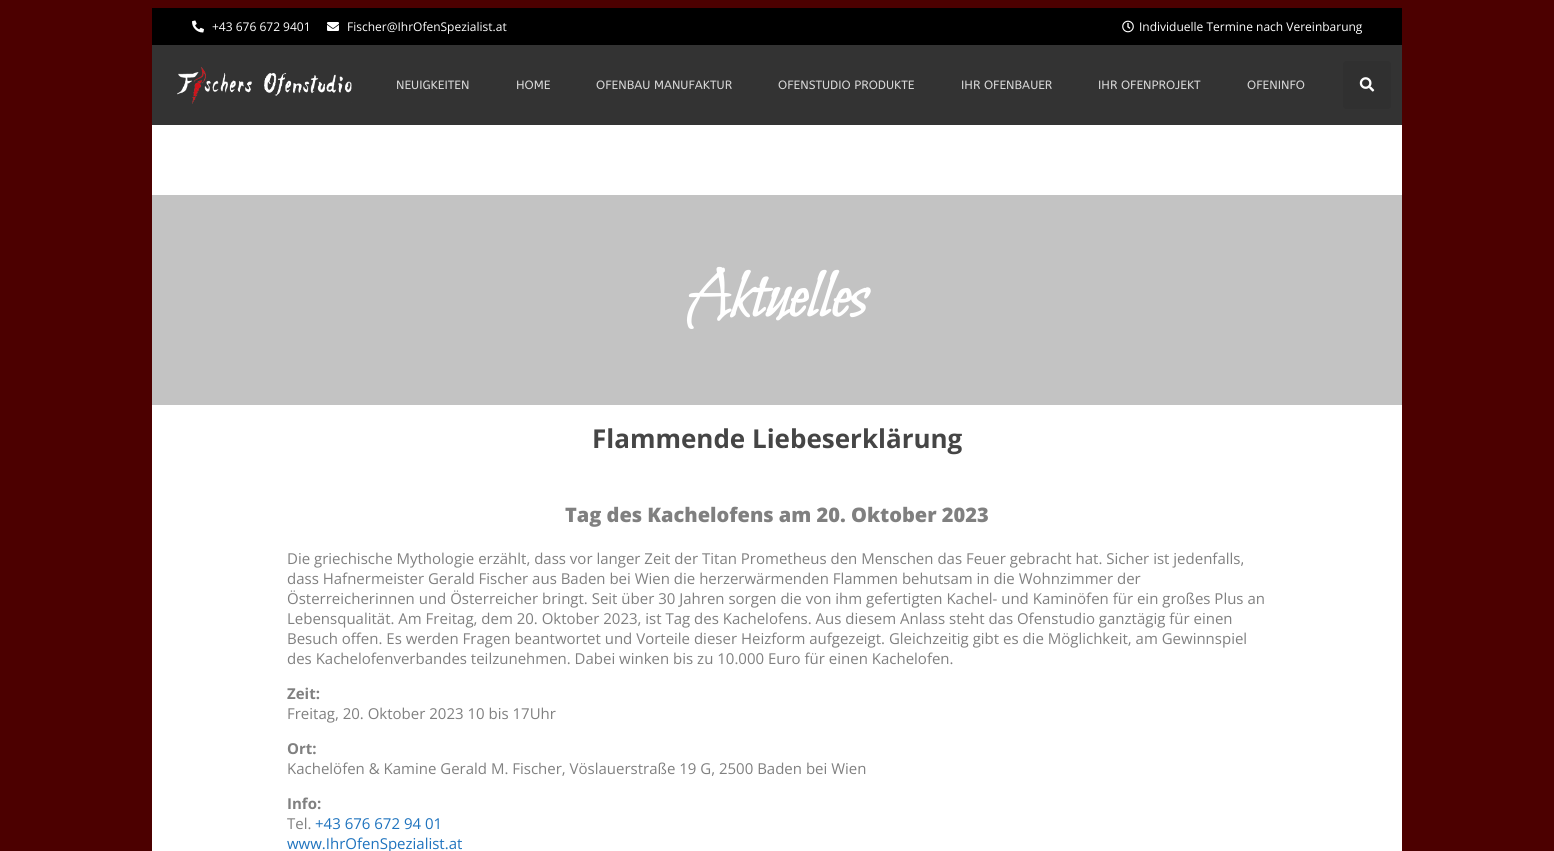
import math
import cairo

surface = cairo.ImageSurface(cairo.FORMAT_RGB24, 1554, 851)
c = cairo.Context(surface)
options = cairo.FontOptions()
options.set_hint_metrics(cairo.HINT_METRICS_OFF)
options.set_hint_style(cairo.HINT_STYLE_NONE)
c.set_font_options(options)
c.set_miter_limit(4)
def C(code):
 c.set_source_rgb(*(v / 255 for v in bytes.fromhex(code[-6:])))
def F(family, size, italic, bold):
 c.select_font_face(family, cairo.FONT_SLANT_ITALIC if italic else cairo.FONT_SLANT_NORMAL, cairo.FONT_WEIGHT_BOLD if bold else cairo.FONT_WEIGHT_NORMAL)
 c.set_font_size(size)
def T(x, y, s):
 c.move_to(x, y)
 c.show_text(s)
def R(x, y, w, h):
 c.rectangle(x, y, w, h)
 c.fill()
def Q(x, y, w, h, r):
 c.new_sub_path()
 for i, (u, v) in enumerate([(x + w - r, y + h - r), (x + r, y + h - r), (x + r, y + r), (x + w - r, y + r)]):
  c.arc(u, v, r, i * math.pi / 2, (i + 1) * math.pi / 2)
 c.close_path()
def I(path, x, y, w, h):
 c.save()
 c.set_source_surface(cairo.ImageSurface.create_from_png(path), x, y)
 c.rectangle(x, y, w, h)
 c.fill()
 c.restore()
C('4c0000')
c.paint()
C('000000')
R(152,8,1250,37)
I('1.png',192,20,12,13)
F('Open Sans',12,0,0)
C('ffffff')
T(212,31,'+43 676 672 9401')
I('2.png',327,22,12,9)
T(347,31,'Fischer@IhrOfenSpezialist.at')
I('3.png',1122,20,12,13)
T(1139,31,'Individuelle Termine nach Vereinbarung')
C('333333')
R(152,45,1250,80)
I('4.png',177,67,175,37)
F('ABeeZee',12,0,0)
C('d8d8d8')
T(396,89,'NEUIGKEITEN')
T(516,89,'HOME')
T(596,89,'OFENBAU MANUFAKTUR')
T(778,89,'OFENSTUDIO PRODUKTE')
T(961,89,'IHR OFENBAUER')
T(1098,89,'IHR OFENPROJEKT')
T(1247,89,'OFENINFO')
C('303030')
Q(1343,61,48,48,3)
c.fill()
I('5.png',1359,77,16,15)
C('ffffff')
R(152,125,1250,70)
C('c3c3c3')
R(152,195,1250,210)
F('Bilbo Swash Caps',70,0,1)
C('ffffff')
T(687,316,'Aktuelles')
R(152,405,1250,446)
F('Open Sans',26,0,1)
C('454545')
T(592,448,'Flammende Liebeserklärung')
F('Open Sans ExtraBold',20,0,0)
C('808080')
T(565,522,'Tag des Kachelofens am 20. Oktober 2023')
F('Open Sans',15,0,0)
T(287,564,'Die griechische Mythologie erzählt, dass vor langer Zeit der Titan Prometheus den Menschen das Feuer gebracht hat. Sicher ist jedenfalls,')
T(287,584,'dass Hafnermeister Gerald Fischer aus Baden bei Wien die herzerwärmenden Flammen behutsam in die Wohnzimmer der')
T(287,604,'Österreicherinnen und Österreicher bringt. Seit über 30 Jahren sorgen die von ihm gefertigten Kachel- und Kaminöfen für ein großes Plus an')
T(287,624,'Lebensqualität. Am Freitag, dem 20. Oktober 2023, ist Tag des Kachelofens. Aus diesem Anlass steht das Ofenstudio ganztägig für einen')
T(287,644,'Besuch offen. Es werden Fragen beantwortet und Vorteile dieser Heizform aufgezeigt. Gleichzeitig gibt es die Möglichkeit, am Gewinnspiel')
T(287,664,'des Kachelofenverbandes teilzunehmen. Dabei winken bis zu 10.000 Euro für einen Kachelofen.')
F('Open Sans',15,0,1)
T(287,699,'Zeit:')
F('Open Sans',15,0,0)
T(287,719,'Freitag, 20. Oktober 2023 10 bis 17Uhr')
F('Open Sans',15,0,1)
T(287,754,'Ort:')
F('Open Sans',15,0,0)
T(287,774,'Kachelöfen & Kamine Gerald M. Fischer, Vöslauerstraße 19 G, 2500 Baden bei Wien')
F('Open Sans',15,0,1)
T(287,809,'Info:')
F('Open Sans',15,0,0)
T(287,829,'Tel.')
C('1e73be')
T(315,829,'+43 676 672 94 01')
T(287,849,'www.IhrOfenSpezialist.at')
surface.write_to_png('o.png')
